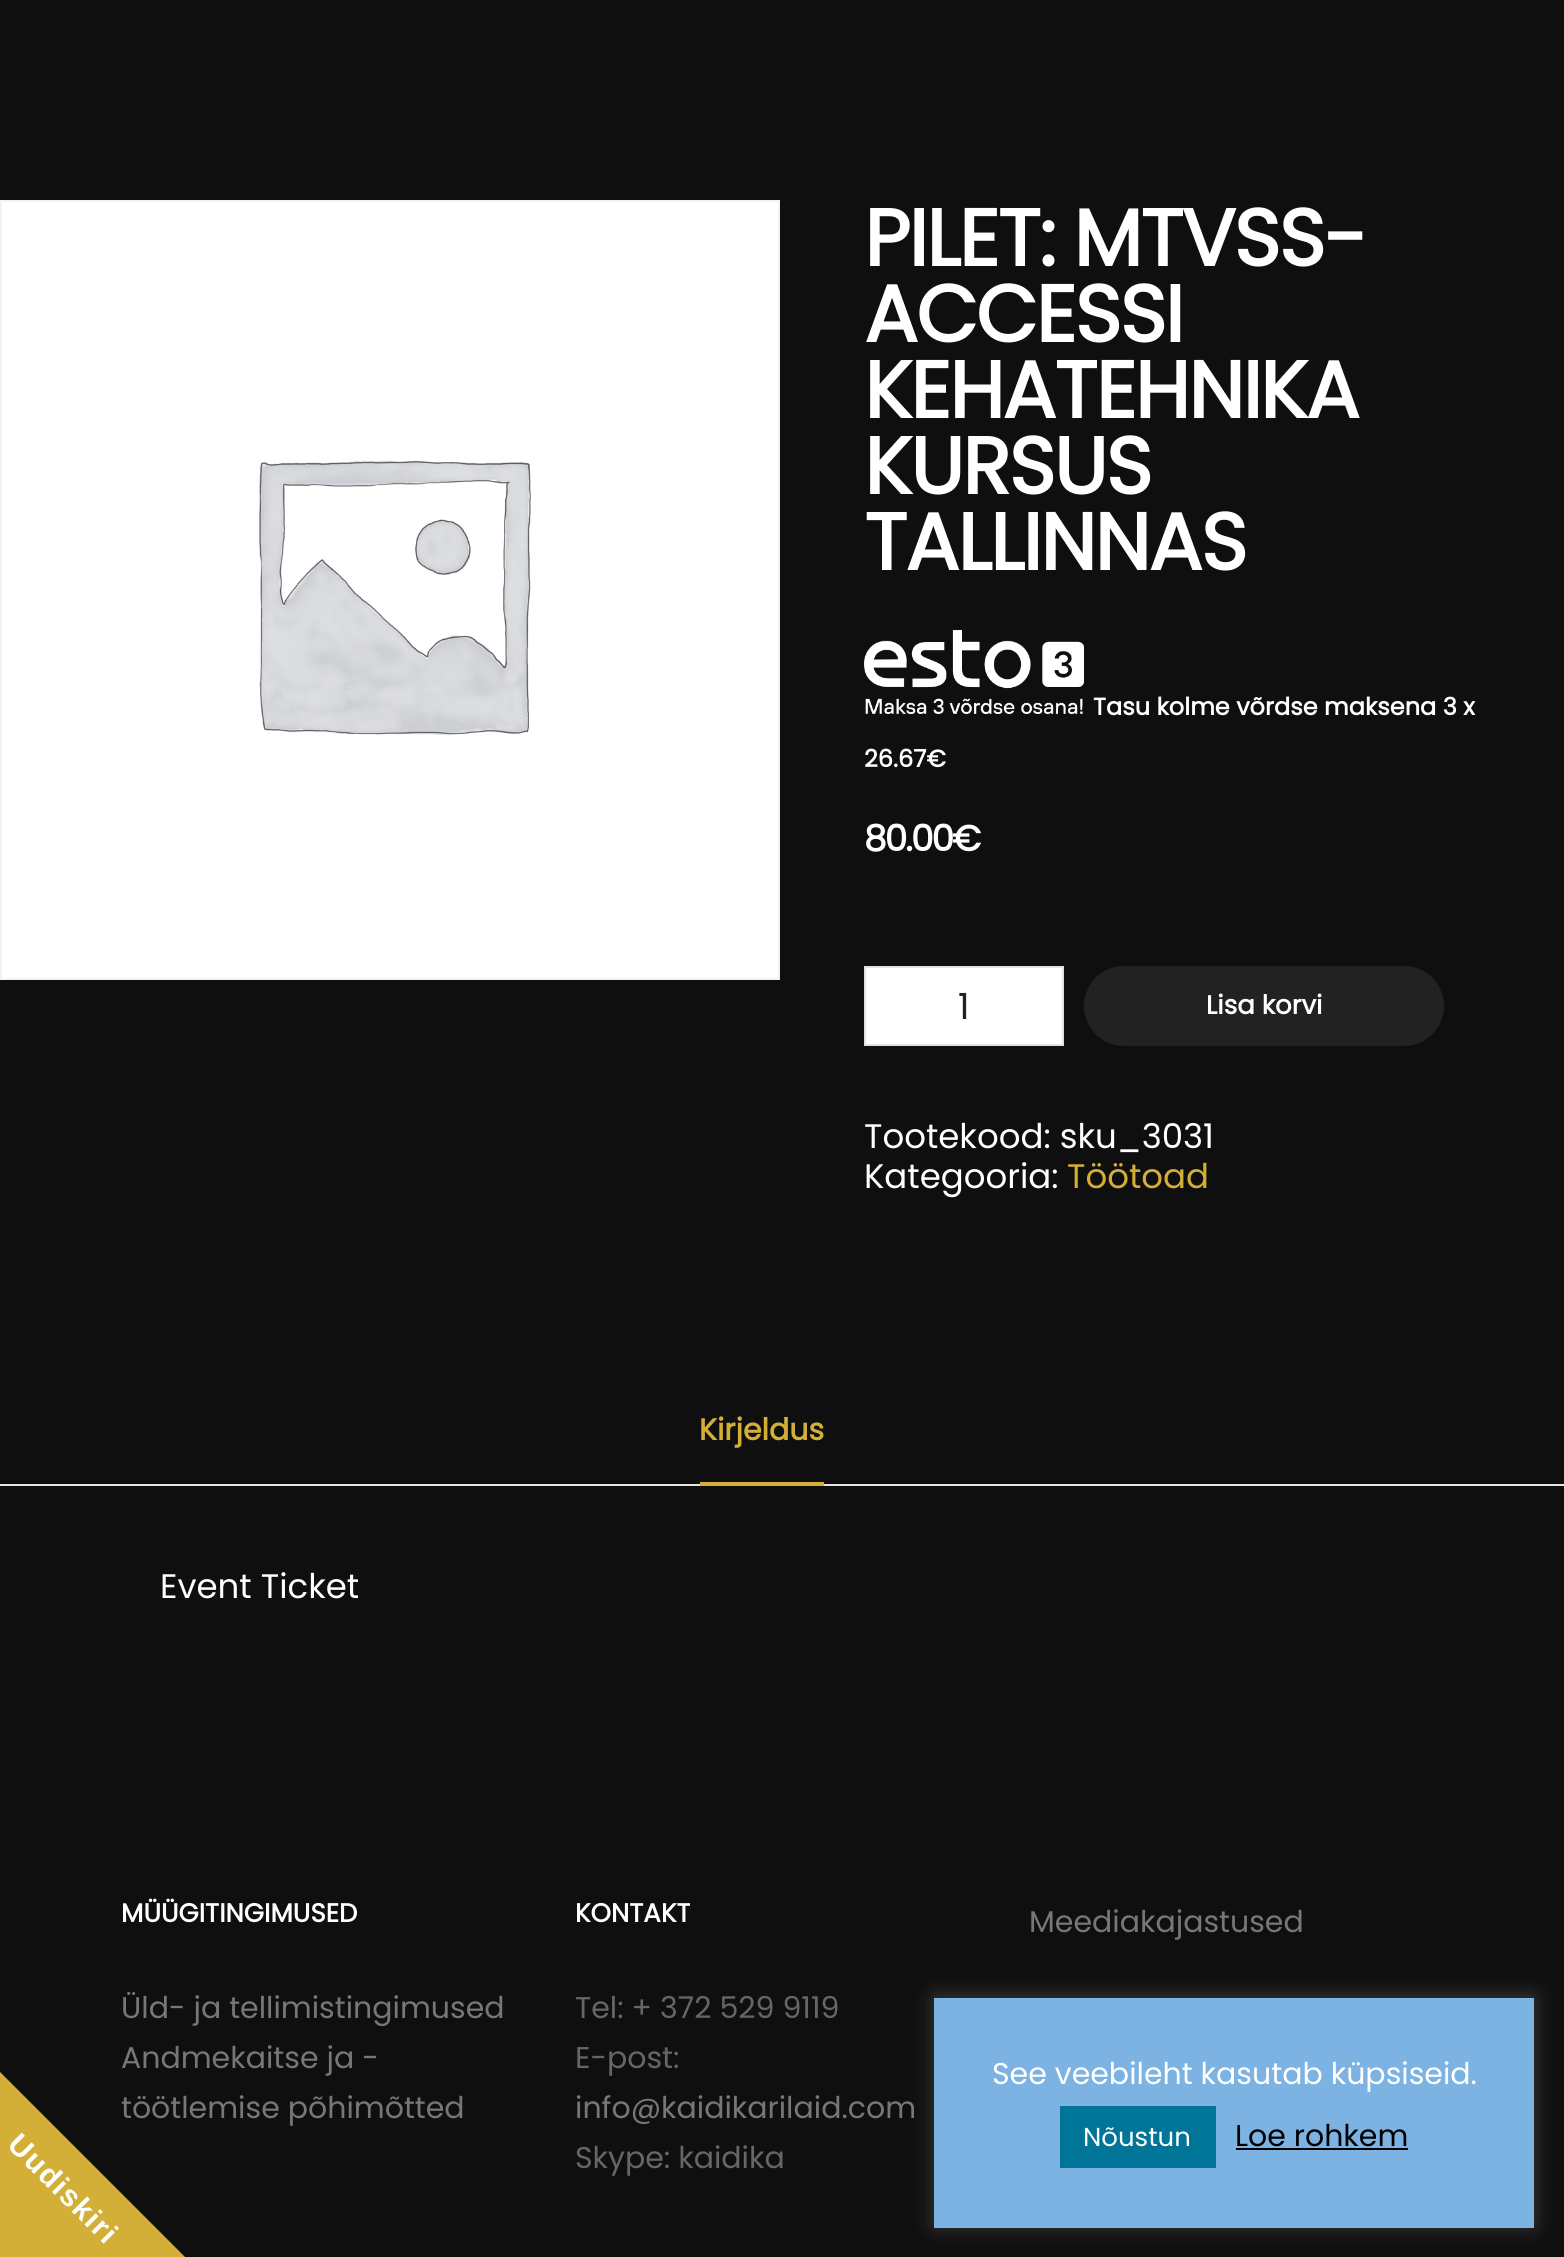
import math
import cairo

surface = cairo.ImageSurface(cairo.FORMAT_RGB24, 1564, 2257)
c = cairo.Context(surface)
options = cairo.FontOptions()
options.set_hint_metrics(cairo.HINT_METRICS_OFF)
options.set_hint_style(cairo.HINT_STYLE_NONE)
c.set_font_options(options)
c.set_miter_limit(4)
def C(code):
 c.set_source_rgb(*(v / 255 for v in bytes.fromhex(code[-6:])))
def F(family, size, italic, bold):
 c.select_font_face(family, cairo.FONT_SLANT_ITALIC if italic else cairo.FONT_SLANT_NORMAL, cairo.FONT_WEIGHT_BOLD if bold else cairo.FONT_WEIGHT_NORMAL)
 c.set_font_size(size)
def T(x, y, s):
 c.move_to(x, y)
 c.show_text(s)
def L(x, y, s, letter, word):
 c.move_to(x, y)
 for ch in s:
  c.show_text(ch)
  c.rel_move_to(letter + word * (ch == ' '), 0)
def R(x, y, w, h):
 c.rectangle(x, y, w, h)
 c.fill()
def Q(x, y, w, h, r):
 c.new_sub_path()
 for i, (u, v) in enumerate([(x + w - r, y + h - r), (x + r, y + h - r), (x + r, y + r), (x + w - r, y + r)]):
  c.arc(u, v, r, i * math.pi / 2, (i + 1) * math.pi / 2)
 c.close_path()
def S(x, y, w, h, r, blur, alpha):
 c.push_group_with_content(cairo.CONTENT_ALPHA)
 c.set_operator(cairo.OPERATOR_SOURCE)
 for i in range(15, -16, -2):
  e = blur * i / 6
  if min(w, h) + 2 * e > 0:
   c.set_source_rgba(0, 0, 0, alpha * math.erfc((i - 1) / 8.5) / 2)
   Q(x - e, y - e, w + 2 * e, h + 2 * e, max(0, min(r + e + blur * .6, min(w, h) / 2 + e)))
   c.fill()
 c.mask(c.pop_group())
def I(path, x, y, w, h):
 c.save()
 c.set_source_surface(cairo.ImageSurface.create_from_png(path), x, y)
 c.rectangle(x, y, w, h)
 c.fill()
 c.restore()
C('0f0f0f')
c.paint()
c.rectangle(1,201,778,778)
C('f2f2f2')
c.stroke()
I('1.png',2,202,776,776)
F('Poppins',80,0,1)
C('ffffff')
L(864,266,'PILET: MTVSS-',-2,0)
L(864,342,'ACCESSI',-2,0)
L(864,418,'KEHATEHNIKA',-2,0)
L(864,494,'KURSUS',-2,0)
L(864,570,'TALLINNAS',-2,0)
I('2.png',864,630,220,84)
F('Poppins',24,0,1)
T(1093,715,'Tasu kolme võrdse maksena 3 x')
T(864,767,'26.67€')
F('Poppins',36,0,1)
L(864,851,'80.00€',-2,0)
c.rectangle(865,967,198,78)
c.fill_preserve()
C('e1e1e1')
c.stroke()
F('Poppins',36,0,0)
C('222222')
T(958,1019,'1')
Q(1084,966,360,80,40)
c.fill()
F('Poppins',26,0,1)
C('ffffff')
T(1206,1014,'Lisa korvi')
F('Poppins',34,0,0)
T(864,1148,'Tootekood: sku_3031')
T(864,1188,'Kategooria:')
C('d4af37')
T(1067,1188,'Töötoad')
C('e5e5e5')
R(0,1484,1564,2)
C('d4af37')
R(700,1482,124,4)
F('Poppins',30,0,1)
T(699,1440,'Kirjeldus')
F('Poppins',34,0,0)
C('ffffff')
T(160,1598,'Event Ticket')
F('Poppins',26,0,1)
T(121,1922,'MÜÜGITINGIMUSED')
F('Poppins',30,0,0)
C('777777')
T(121,2018,'Üld- ja tellimistingimused')
T(121,2068,'Andmekaitse ja -')
T(121,2118,'töötlemise põhimõtted')
F('Poppins',26,0,1)
C('ffffff')
T(575,1922,'KONTAKT')
F('Poppins',30,0,0)
C('666666')
T(575,2018,'Tel: + 372 529 9119')
T(575,2068,'E-post:')
C('777777')
T(575,2118,'info@kaidikarilaid.com')
C('666666')
T(575,2168,'Skype: kaidika')
C('777777')
T(1029,1932,'Meediakajastused')
C('acabab')
S(934,1996,600,230,0,10,.3)
C('7cb3e2')
R(934,1998,600,230)
C('ffffff')
T(992,2084,'See veebileht kasutab küpsiseid.')
C('007598')
R(1060,2106,156,62)
F('Poppins',26,0,0)
C('ffffff')
T(1083,2146,'Nõustun')
F('Poppins',30,0,0)
C('000000')
T(1235,2146,'Loe rohkem')
R(1236,2148,172,2)
C('d4af37')
c.new_path()
c.move_to(-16,2056)
c.line_to(196,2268)
c.curve_to(200,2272,200,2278,196,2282)
c.line_to(-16,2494)
c.curve_to(-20,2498,-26,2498,-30,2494)
c.line_to(-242,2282)
c.curve_to(-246,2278,-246,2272,-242,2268)
c.line_to(-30,2056)
c.curve_to(-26,2052,-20,2052,-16,2056)
c.close_path()
c.fill()
F('Liberation Sans',30,0,1)
C('ffffff')
c.save()
c.translate(6,2146)
c.rotate(45 * math.pi / 180)
L(0,0,'Uudiskiri',1.5,0)
c.restore()
surface.write_to_png('o.png')
